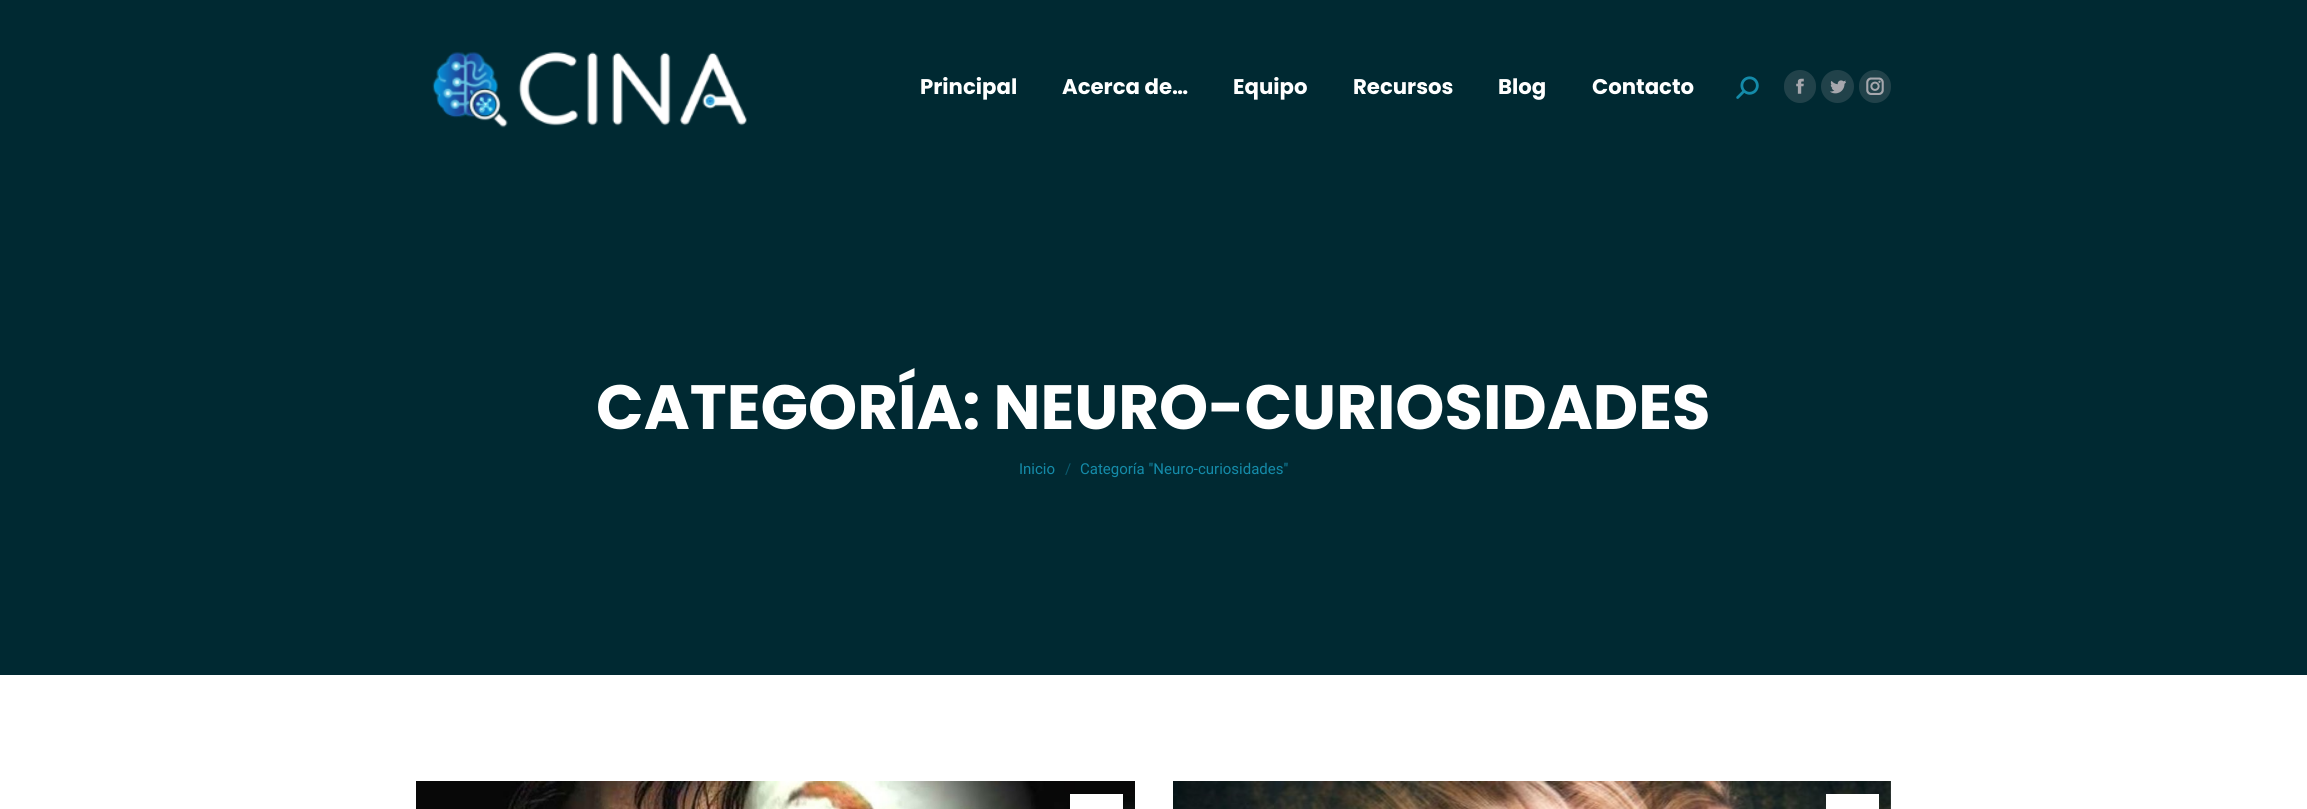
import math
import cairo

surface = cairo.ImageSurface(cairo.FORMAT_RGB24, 2307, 809)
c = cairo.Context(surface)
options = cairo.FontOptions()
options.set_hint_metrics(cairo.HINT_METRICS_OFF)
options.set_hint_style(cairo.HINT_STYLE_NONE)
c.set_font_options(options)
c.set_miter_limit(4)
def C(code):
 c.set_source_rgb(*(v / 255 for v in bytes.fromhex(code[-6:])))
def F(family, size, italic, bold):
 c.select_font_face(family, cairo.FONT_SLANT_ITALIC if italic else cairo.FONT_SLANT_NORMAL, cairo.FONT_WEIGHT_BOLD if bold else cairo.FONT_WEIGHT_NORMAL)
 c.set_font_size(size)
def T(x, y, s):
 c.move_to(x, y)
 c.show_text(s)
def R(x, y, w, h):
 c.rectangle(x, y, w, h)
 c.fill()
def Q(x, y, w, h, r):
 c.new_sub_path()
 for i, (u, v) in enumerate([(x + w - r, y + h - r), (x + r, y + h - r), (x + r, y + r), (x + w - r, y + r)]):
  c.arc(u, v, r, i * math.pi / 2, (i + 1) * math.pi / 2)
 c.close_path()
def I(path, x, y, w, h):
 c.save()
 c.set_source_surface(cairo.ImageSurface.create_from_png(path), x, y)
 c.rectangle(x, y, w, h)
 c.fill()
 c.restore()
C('ffffff')
c.paint()
C('002932')
R(0,0,2307,675)
I('1.png',432,51,315,77)
F('Poppins',21.25,0,1)
C('ffffff')
T(920,94,'Principal')
T(1062,94,'Acerca de…')
T(1233,94,'Equipo')
T(1353,94,'Recursos')
T(1498,94,'Blog')
T(1592,94,'Contacto')
I('2.png',1736,76,23,23)
C('21424a')
Q(1784,70,32,33,16)
c.fill()
I('3.png',1796,78,8,16)
c.arc(1837.5,86.5,16.5,0,2 * math.pi)
c.fill()
I('4.png',1830,80,16,14)
Q(1859,70,32,33,16)
c.fill()
I('5.png',1866,77,18,18)
F('Poppins',62.5,0,1)
C('ffffff')
T(596,429,'CATEGORÍA: NEURO-CURIOSIDADES')
F('Roboto',15,0,0)
C('148ba9')
T(1019,474,'Inicio')
C('0a5a6e')
T(1065,474,'/')
C('148ba9')
T(1080,474,'Categoría "Neuro-curiosidades"')
I('6.png',416,781,719,28)
C('ffffff')
R(1070,794,53,15)
I('7.png',1173,781,718,28)
R(1826,794,53,15)
surface.write_to_png('o.png')
